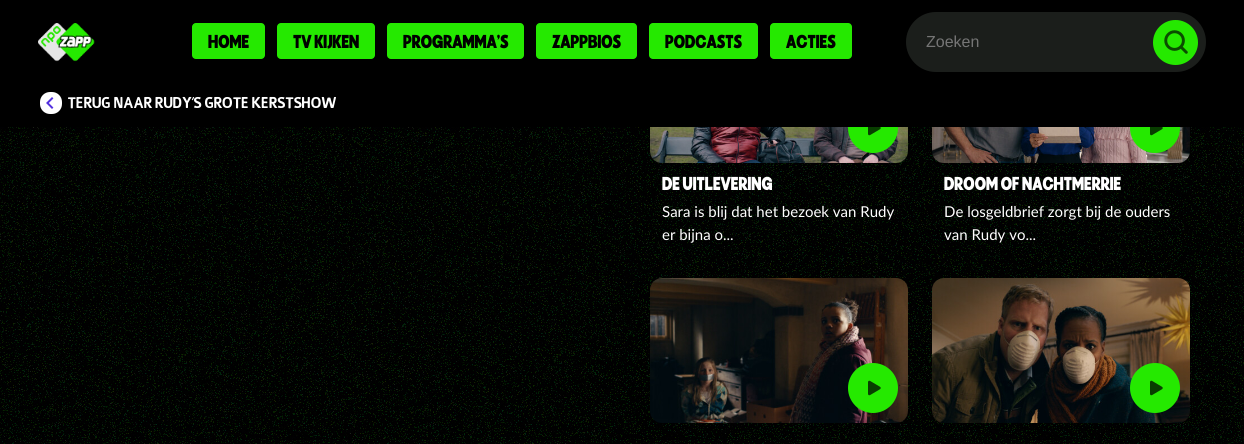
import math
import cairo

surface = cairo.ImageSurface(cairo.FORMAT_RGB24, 1244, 444)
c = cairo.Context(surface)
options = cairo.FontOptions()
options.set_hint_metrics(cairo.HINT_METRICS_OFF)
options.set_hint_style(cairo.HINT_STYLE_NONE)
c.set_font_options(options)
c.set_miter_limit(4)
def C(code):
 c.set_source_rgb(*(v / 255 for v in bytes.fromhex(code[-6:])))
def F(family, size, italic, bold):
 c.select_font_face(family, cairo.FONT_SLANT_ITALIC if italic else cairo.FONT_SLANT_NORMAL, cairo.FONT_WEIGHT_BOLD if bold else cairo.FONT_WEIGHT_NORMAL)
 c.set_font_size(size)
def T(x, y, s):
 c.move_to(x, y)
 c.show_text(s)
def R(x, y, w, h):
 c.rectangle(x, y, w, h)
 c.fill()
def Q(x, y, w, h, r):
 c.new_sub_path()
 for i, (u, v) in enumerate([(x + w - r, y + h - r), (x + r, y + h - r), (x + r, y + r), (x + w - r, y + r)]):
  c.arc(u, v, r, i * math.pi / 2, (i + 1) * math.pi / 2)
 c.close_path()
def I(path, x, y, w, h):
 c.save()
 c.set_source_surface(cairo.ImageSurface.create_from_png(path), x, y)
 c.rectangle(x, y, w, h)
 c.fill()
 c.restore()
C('ffffff')
c.paint()
I('1.png',0,127,1244,317)
I('6.png',650,127,258,36)
C('25e900')
c.arc(873,128,25,0,2 * math.pi)
c.fill()
I('7.png',932,127,258,36)
c.arc(1155,128,25,0,2 * math.pi)
c.fill()
C('000000')
R(0,0,1244,127)
I('2.png',38,23,57,39)
C('25e900')
Q(192,23,73,36,4)
c.fill()
F('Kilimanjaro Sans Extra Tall',18,0,0)
C('000000')
T(208,48,'HOME')
C('25e900')
Q(277,23,98,36,4)
c.fill()
C('000000')
T(293,48,'TV KIJKEN')
C('25e900')
Q(387,23,137,36,4)
c.fill()
C('000000')
T(403,48,'PROGRAMMA\'S')
C('25e900')
Q(536,23,101,36,4)
c.fill()
C('000000')
T(552,48,'ZAPPBIOS')
C('25e900')
Q(649,23,109,36,4)
c.fill()
C('000000')
T(665,48,'PODCASTS')
C('25e900')
Q(770,23,82,36,4)
c.fill()
C('000000')
T(786,48,'ACTIES')
C('1b1e1b')
Q(906,12,300,60,30)
c.fill()
F('Liberation Sans',16,0,0)
C('757575')
T(926,47,'Zoeken')
C('25e900')
c.new_path()
c.arc(1175.5,42.5,22.5,0,2 * math.pi)
c.fill()
I('3.png',1164,30,24,24)
C('ffffff')
Q(40,92,22,22,10)
c.fill()
I('4.png',46,97,8,12)
F('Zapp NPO',15,0,0)
T(68,108,'TERUG NAAR RUDY\'S GROTE KERSTSHOW')
I('5.png',868,127,13,9)
F('Kilimanjaro Sans Extra Tall',18,0,0)
T(662,190,'DE UITLEVERING')
F('Lato',15,0,0)
T(662,217,'Sara is blij dat het bezoek van Rudy')
T(662,240,'er bijna o...')
I('5.png',1150,127,13,9)
F('Kilimanjaro Sans Extra Tall',18,0,0)
T(944,190,'DROOM OF NACHTMERRIE')
F('Lato',15,0,0)
T(944,217,'De losgeldbrief zorgt bij de ouders')
T(944,240,'van Rudy vo...')
I('8.png',650,278,258,145)
C('25e900')
c.arc(873,388,25,0,2 * math.pi)
c.fill()
I('9.png',868,380,13,16)
I('10.png',932,278,258,145)
c.arc(1155,388,25,0,2 * math.pi)
c.fill()
I('9.png',1150,380,13,16)
surface.write_to_png('o.png')
